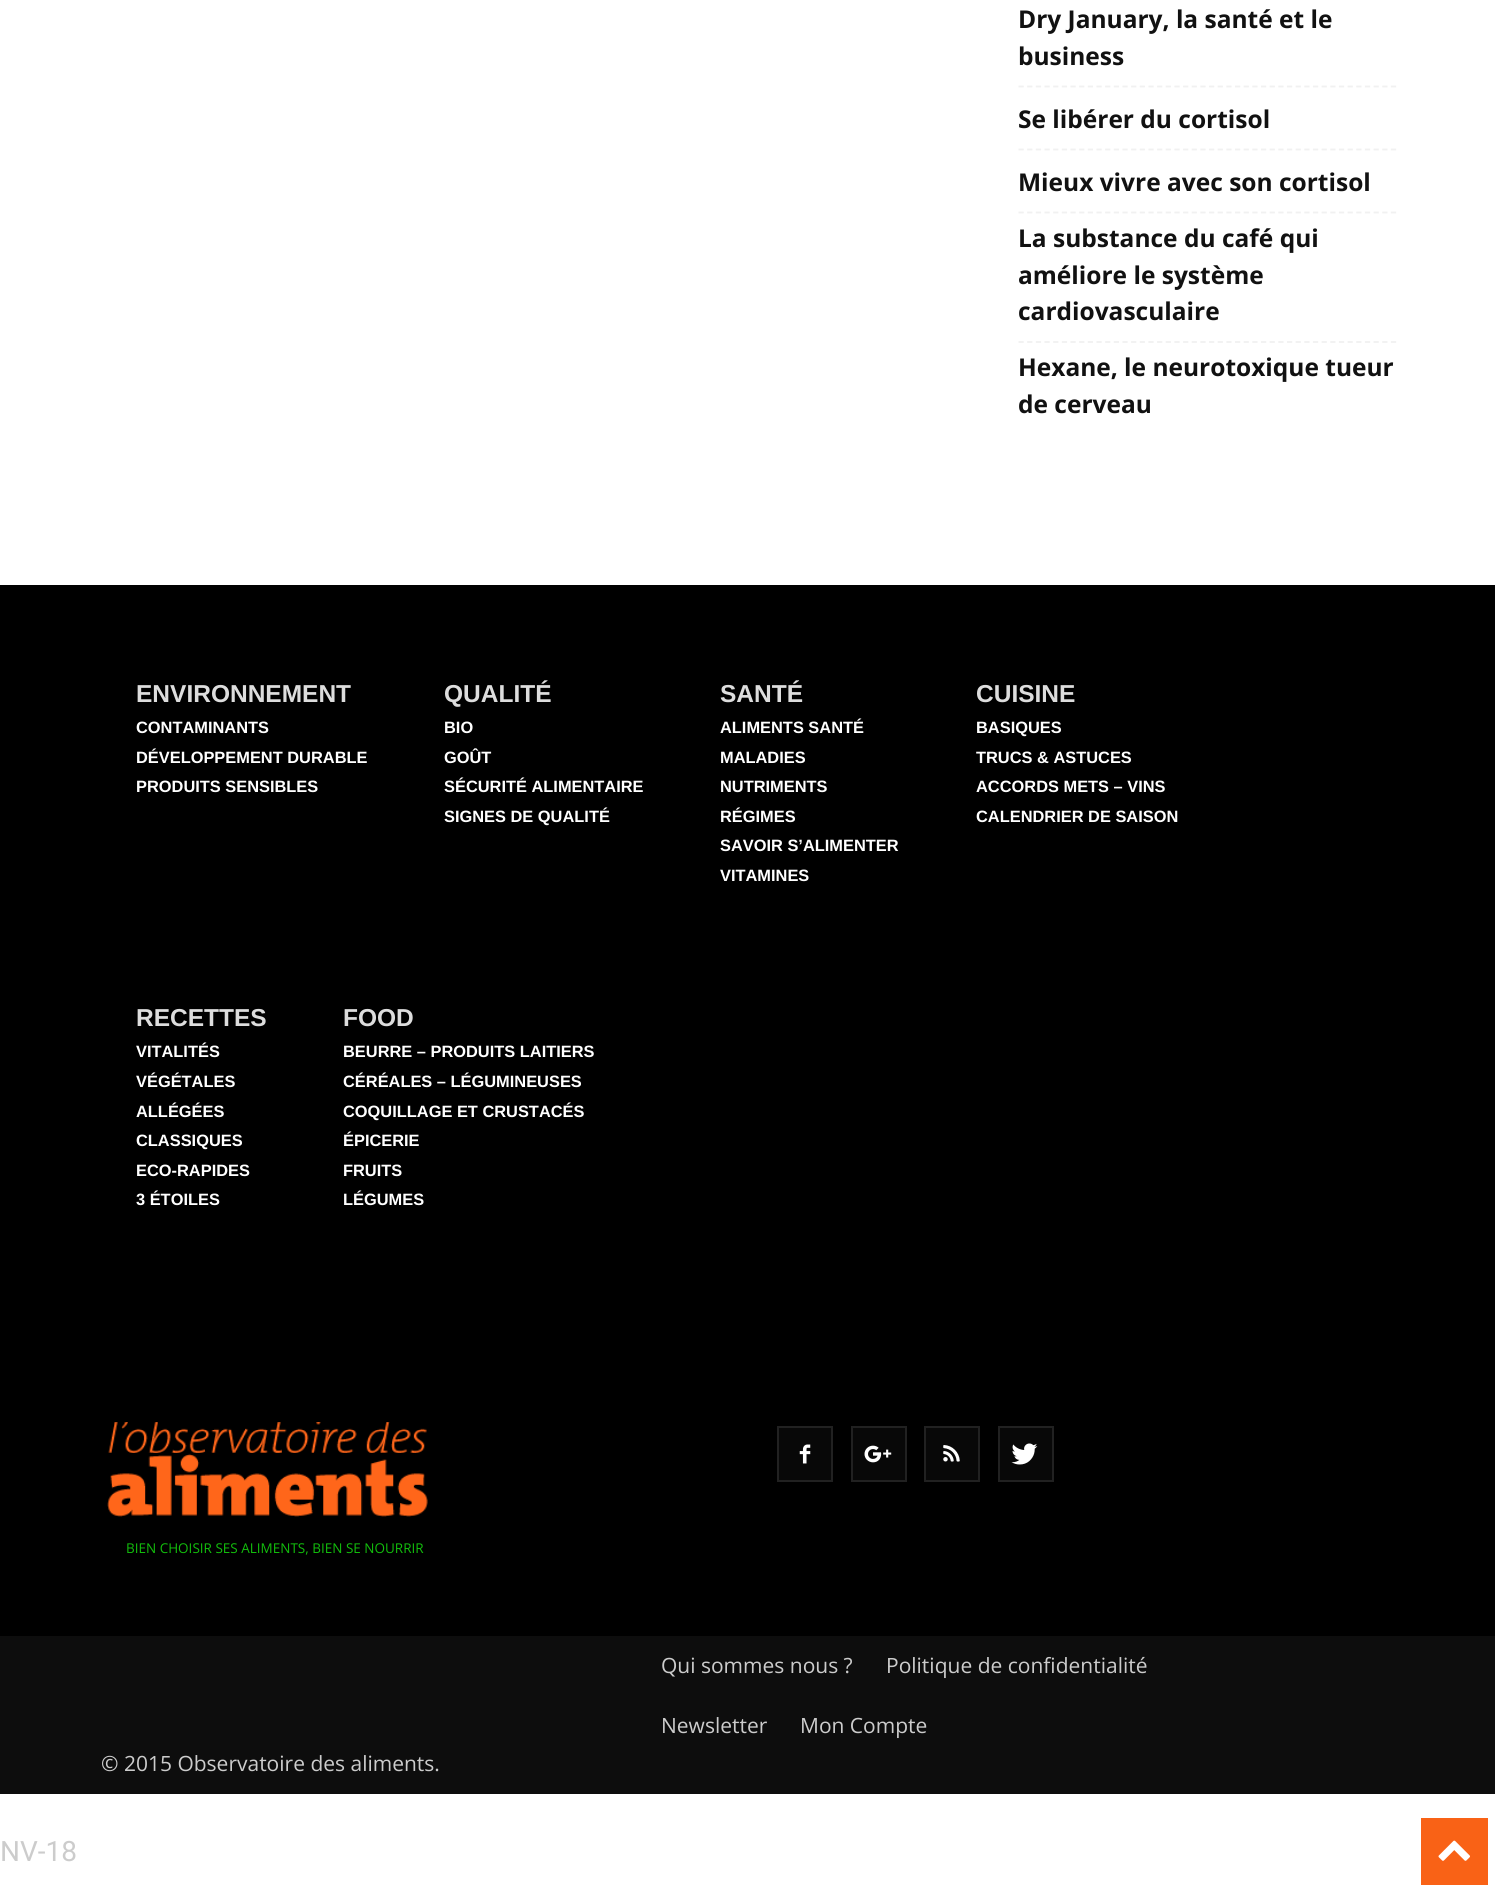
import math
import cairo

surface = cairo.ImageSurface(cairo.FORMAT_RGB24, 1495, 1891)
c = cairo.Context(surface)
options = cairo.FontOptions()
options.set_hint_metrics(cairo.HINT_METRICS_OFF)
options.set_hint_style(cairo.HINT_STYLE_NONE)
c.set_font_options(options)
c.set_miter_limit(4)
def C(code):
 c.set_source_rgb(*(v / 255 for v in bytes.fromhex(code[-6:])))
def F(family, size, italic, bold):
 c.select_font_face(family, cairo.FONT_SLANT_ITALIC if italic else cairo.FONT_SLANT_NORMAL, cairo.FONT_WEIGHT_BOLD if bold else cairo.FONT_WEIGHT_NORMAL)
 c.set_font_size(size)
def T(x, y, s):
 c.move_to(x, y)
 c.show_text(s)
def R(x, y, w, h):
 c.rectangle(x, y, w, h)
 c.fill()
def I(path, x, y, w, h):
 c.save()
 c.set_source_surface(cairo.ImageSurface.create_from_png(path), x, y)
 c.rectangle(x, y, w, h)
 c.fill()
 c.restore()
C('ffffff')
c.paint()
c.new_path()
c.move_to(1018.5,86.5)
c.line_to(1396.5,86.5)
C('f1f1f1')
c.set_line_width(1.8)
c.set_dash([5.25,3.41])
c.stroke()
F('Open Sans',24.5,0,1)
C('111111')
T(1018,28,'Dry January, la santé et le')
T(1018,65,'business')
c.new_path()
c.move_to(1018.5,149.5)
c.line_to(1396.5,149.5)
C('f1f1f1')
c.stroke()
C('111111')
T(1018,128,'Se libérer du cortisol')
c.new_path()
c.move_to(1018.5,212.5)
c.line_to(1396.5,212.5)
C('f1f1f1')
c.stroke()
C('111111')
T(1018,191,'Mieux vivre avec son cortisol')
c.new_path()
c.move_to(1018.5,342)
c.line_to(1396.5,342)
C('f1f1f1')
c.stroke()
C('111111')
T(1018,247,'La substance du café qui')
T(1018,284,'améliore le système')
T(1018,320,'cardiovasculaire')
T(1018,376,'Hexane, le neurotoxique tueur')
T(1018,413,'de cerveau')
C('000000')
R(0,585,1495,1051)
F('Liberation Sans',24.5,0,1)
C('dddddd')
T(136,702,'ENVIRONNEMENT')
F('Liberation Sans',16.4,0,1)
C('ffffff')
T(136,733,'CONTAMINANTS')
T(136,763,'DÉVELOPPEMENT DURABLE')
T(136,792,'PRODUITS SENSIBLES')
F('Liberation Sans',24.5,0,1)
C('dddddd')
T(444,702,'QUALITÉ')
F('Liberation Sans',16.4,0,1)
C('ffffff')
T(444,733,'BIO')
T(444,763,'GOÛT')
T(444,792,'SÉCURITÉ ALIMENTAIRE')
T(444,822,'SIGNES DE QUALITÉ')
F('Liberation Sans',24.5,0,1)
C('dddddd')
T(720,702,'SANTÉ')
F('Liberation Sans',16.4,0,1)
C('ffffff')
T(720,733,'ALIMENTS SANTÉ')
T(720,763,'MALADIES')
T(720,792,'NUTRIMENTS')
T(720,822,'RÉGIMES')
T(720,851,'SAVOIR S’ALIMENTER')
T(720,881,'VITAMINES')
F('Liberation Sans',24.5,0,1)
C('dddddd')
T(976,702,'CUISINE')
F('Liberation Sans',16.4,0,1)
C('ffffff')
T(976,733,'BASIQUES')
T(976,763,'TRUCS & ASTUCES')
T(976,792,'ACCORDS METS – VINS')
T(976,822,'CALENDRIER DE SAISON')
F('Liberation Sans',24.5,0,1)
C('dddddd')
T(136,1026,'RECETTES')
F('Liberation Sans',16.4,0,1)
C('ffffff')
T(136,1057,'VITALITÉS')
T(136,1087,'VÉGÉTALES')
T(136,1117,'ALLÉGÉES')
T(136,1146,'CLASSIQUES')
T(136,1176,'ECO-RAPIDES')
T(136,1205,'3 ÉTOILES')
F('Liberation Sans',24.5,0,1)
C('dddddd')
T(343,1026,'FOOD')
F('Liberation Sans',16.4,0,1)
C('ffffff')
T(343,1057,'BEURRE – PRODUITS LAITIERS')
T(343,1087,'CÉRÉALES – LÉGUMINEUSES')
T(343,1117,'COQUILLAGE ET CRUSTACÉS')
T(343,1146,'ÉPICERIE')
T(343,1176,'FRUITS')
T(343,1205,'LÉGUMES')
I('1.png',107,1422,321,95)
C('080808')
c.rectangle(778,1427,54,54)
c.fill_preserve()
C('212121')
c.set_line_width(2)
c.set_dash([])
c.stroke()
I('2.png',799,1444,12,20)
C('080808')
c.rectangle(852,1427,54,54)
c.fill_preserve()
C('212121')
c.stroke()
I('3.png',864,1445,28,18)
C('080808')
c.rectangle(925,1427,54,54)
c.fill_preserve()
C('212121')
c.stroke()
I('4.png',943,1445,17,17)
C('080808')
c.rectangle(999,1427,54,54)
c.fill_preserve()
C('212121')
c.stroke()
I('5.png',1011,1443,27,22)
F('Open Sans',13.5,0,0)
C('12be0c')
T(126,1553,'BIEN CHOISIR SES ALIMENTS, BIEN SE NOURRIR')
C('0d0d0d')
R(0,1636,1495,158)
F('Open Sans',21,0,0)
C('cccccc')
T(661,1673,'Qui sommes nous ?')
T(886,1673,'Politique de confidentialité')
T(661,1733,'Newsletter')
T(800,1733,'Mon Compte')
T(101,1771,'© 2015 Observatoire des aliments.')
F('Roboto',28,0,0)
T(0,1861,'NV-18')
C('f96216')
R(1421,1818,67,67)
I('6.png',1438,1840,32,21)
surface.write_to_png('o.png')
